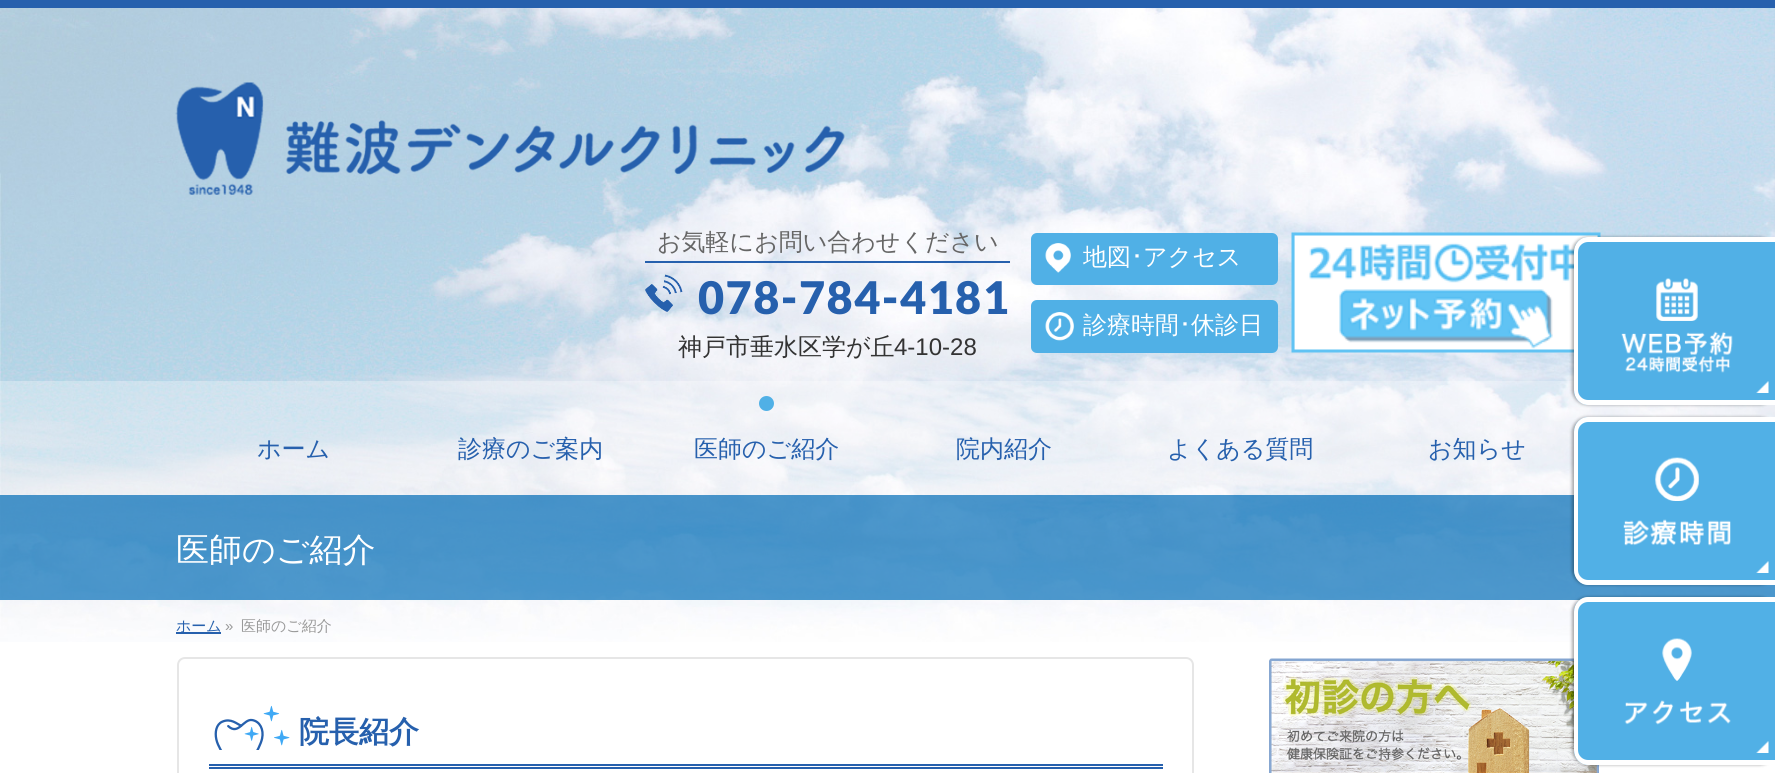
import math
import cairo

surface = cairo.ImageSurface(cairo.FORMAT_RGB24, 1775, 773)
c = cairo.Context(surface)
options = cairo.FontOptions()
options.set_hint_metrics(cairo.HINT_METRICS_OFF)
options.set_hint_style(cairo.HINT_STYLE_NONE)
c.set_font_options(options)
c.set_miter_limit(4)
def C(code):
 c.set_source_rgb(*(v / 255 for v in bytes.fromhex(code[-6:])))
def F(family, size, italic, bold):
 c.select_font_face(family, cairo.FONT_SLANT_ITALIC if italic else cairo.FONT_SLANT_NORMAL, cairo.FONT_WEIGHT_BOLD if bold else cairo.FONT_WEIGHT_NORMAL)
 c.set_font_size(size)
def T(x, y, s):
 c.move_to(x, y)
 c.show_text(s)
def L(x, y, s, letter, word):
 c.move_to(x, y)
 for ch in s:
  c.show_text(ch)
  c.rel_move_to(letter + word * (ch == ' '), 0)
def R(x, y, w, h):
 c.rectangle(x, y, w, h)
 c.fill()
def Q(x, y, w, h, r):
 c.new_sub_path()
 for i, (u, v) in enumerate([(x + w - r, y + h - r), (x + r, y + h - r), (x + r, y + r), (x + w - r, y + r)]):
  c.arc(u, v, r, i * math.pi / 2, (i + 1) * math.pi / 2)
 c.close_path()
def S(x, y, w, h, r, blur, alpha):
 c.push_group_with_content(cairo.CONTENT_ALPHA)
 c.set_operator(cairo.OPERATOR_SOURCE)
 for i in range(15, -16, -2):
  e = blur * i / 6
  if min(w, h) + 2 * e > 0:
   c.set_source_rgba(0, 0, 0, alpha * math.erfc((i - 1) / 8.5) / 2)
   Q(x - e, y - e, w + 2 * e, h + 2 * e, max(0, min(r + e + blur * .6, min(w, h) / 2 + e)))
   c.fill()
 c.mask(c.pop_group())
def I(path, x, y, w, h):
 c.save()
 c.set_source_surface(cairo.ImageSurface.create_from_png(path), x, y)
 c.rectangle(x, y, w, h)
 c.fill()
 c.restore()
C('ffffff')
c.paint()
I('1.png',0,8,1775,634)
C('2660ad')
R(0,0,1775,8)
I('2.png',175,82,670,113)
R(645,261,365,2)
F('WenQuanYi Zen Hei Medium',24,0,0)
C('666666')
T(657,250,'お気軽にお問い合わせください')
I('3.png',645,274,38,38)
F('Lato Black',45,0,0)
C('2660ad')
L(698,314,'078-784-4181',1.5,0)
F('WenQuanYi Zen Hei Medium',24,0,0)
C('333333')
T(678,355,'神戸市垂水区学が丘')
F('Liberation Sans',24,0,0)
T(894,355,'4-10-28')
C('50b0e6')
Q(1031,233,247,52,6)
c.fill()
I('4.png',1045,243,26,30)
F('WenQuanYi Zen Hei Medium',24,0,0)
C('ffffff')
T(1083,265,'地図')
F('IPAPGothic',24,0,0)
T(1131,265,'･')
F('WenQuanYi Zen Hei Medium',24,0,0)
T(1143,265,'アクセス')
C('50b0e6')
Q(1031,300,247,53,6)
c.fill()
I('5.png',1045,312,29,29)
C('ffffff')
T(1083,333,'診療時間')
F('IPAPGothic',24,0,0)
T(1179,333,'･')
F('WenQuanYi Zen Hei Medium',24,0,0)
T(1191,333,'休診日')
I('6.png',1291,232,310,121)
c.set_source_rgba(1,1,1,0.3)
R(0,381,1775,114)
C('2660ad')
T(257,457,'ホーム')
T(458,457,'診療のご案内')
C('50b0e6')
c.new_path()
c.arc(766.5,403.5,7.5,0,2 * math.pi)
c.fill()
C('2660ad')
T(694,457,'医師のご紹介')
T(956,457,'院内紹介')
T(1167,457,'よくある質問')
T(1428,457,'お知らせ')
c.set_source_rgba(0.012,0.431,0.722,0.7)
R(0,495,1775,105)
F('WenQuanYi Zen Hei Medium',33,0,0)
C('ffffff')
T(176,561,'医師のご紹介')
C('2660ad')
R(176,632,45,2)
F('WenQuanYi Zen Hei Medium',15,0,0)
T(176,631,'ホーム')
F('Liberation Sans',15,0,0)
C('999999')
T(225,631,'»')
F('WenQuanYi Zen Hei Medium',15,0,0)
T(241,631,'医師のご紹介')
Q(178,658,1015,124,7)
C('e6e6e6')
c.stroke()
I('7.png',214,705,76,45)
C('2660ad')
R(209,764,954,2)
R(209,767,954,2)
F('WenQuanYi Zen Hei',30,0,1)
T(299,742,'院長紹介')
I('8.png',1269,658,330,115)
C('000000')
S(1572,237,203,168,15,1.5,.33)
C('51b0e6')
c.new_path()
c.move_to(1589,237)
c.line_to(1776,237)
c.line_to(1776,405)
c.line_to(1589,405)
c.curve_to(1580.5,405,1574,398.5,1574,390)
c.line_to(1574,252)
c.curve_to(1574,243.5,1580.5,237,1589,237)
c.close_path()
c.fill()
I('9.png',1756,381,13,12)
C('ffffff')
c.set_fill_rule(cairo.FILL_RULE_EVEN_ODD)
c.new_path()
c.move_to(1588,237)
c.line_to(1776,237)
c.line_to(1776,405)
c.line_to(1588,405)
c.curve_to(1580,405,1574,398,1574,390)
c.line_to(1574,252)
c.curve_to(1574,244,1580,237,1588,237)
c.close_path()
c.move_to(1588,242)
c.line_to(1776,242)
c.line_to(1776,400)
c.line_to(1588,400)
c.curve_to(1583,400,1578,396,1578,390)
c.line_to(1578,252)
c.curve_to(1578,246,1583,242,1588,242)
c.close_path()
c.fill()
I('10.png',1621,278,112,95)
C('000000')
S(1572,417,203,168,15,1.5,.33)
C('51b0e6')
c.new_path()
c.move_to(1589,417)
c.line_to(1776,417)
c.line_to(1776,585)
c.line_to(1589,585)
c.curve_to(1580.5,585,1574,578.5,1574,570)
c.line_to(1574,432)
c.curve_to(1574,423.5,1580.5,417,1589,417)
c.close_path()
c.fill()
I('9.png',1756,561,13,12)
C('ffffff')
c.new_path()
c.move_to(1588,417)
c.line_to(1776,417)
c.line_to(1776,585)
c.line_to(1588,585)
c.curve_to(1580,585,1574,578,1574,570)
c.line_to(1574,432)
c.curve_to(1574,424,1580,417,1588,417)
c.close_path()
c.move_to(1588,422)
c.line_to(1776,422)
c.line_to(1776,580)
c.line_to(1588,580)
c.curve_to(1583,580,1578,576,1578,570)
c.line_to(1578,432)
c.curve_to(1578,426,1583,422,1588,422)
c.close_path()
c.fill()
I('11.png',1623,457,108,89)
C('000000')
S(1572,597,203,168,15,1.5,.33)
C('51b0e6')
c.new_path()
c.move_to(1589,597)
c.line_to(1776,597)
c.line_to(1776,765)
c.line_to(1589,765)
c.curve_to(1580.5,765,1574,758.5,1574,750)
c.line_to(1574,612)
c.curve_to(1574,603.5,1580.5,597,1589,597)
c.close_path()
c.fill()
I('9.png',1756,741,13,12)
C('ffffff')
c.new_path()
c.move_to(1588,597)
c.line_to(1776,597)
c.line_to(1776,765)
c.line_to(1588,765)
c.curve_to(1580,765,1574,758,1574,750)
c.line_to(1574,612)
c.curve_to(1574,604,1580,597,1588,597)
c.close_path()
c.move_to(1588,602)
c.line_to(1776,602)
c.line_to(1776,760)
c.line_to(1588,760)
c.curve_to(1583,760,1578,756,1578,750)
c.line_to(1578,612)
c.curve_to(1578,606,1583,602,1588,602)
c.close_path()
c.fill()
I('12.png',1624,638,107,87)
surface.write_to_png('o.png')
